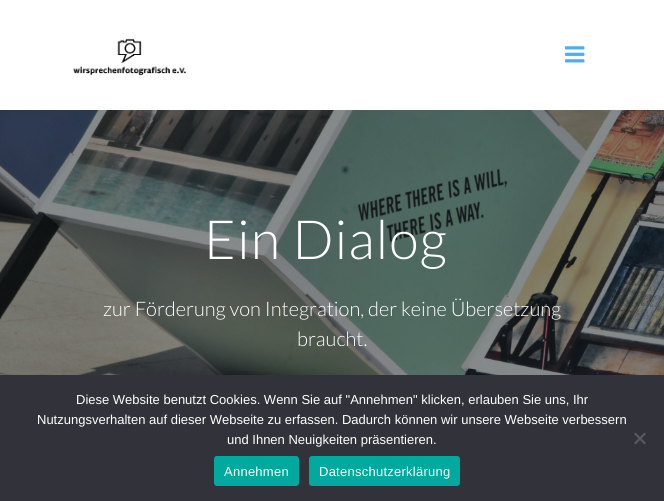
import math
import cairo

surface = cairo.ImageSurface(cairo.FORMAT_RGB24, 664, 501)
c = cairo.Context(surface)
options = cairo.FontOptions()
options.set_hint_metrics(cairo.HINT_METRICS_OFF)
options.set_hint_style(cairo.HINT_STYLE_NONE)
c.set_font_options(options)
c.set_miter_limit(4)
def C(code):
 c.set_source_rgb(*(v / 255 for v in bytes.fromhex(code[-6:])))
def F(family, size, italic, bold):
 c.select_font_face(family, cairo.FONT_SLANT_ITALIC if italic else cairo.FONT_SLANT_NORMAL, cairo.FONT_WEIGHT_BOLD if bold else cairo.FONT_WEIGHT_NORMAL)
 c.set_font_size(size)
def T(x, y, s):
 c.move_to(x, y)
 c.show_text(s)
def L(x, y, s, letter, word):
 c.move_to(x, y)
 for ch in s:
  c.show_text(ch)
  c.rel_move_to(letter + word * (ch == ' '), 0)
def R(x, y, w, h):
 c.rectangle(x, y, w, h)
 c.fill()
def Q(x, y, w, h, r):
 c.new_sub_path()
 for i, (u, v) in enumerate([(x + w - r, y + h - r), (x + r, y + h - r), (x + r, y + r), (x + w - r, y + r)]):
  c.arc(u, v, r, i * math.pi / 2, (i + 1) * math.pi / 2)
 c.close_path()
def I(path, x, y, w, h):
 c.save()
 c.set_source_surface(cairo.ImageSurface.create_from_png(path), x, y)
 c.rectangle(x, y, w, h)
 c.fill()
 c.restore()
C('ffffff')
c.paint()
I('1.png',73,38,113,38)
I('2.png',565,46,20,17)
I('3.png',0,110,664,265)
F('Lato Light',54,0,0)
C('ffffff')
L(204,259,'Ein Dialog',1,0)
F('Lato Light',20,0,0)
T(103,316,'zur Förderung von Integration, der keine Übersetzung')
T(297,346,'braucht.')
C('32323a')
R(0,375,664,126)
F('Liberation Sans',13,0,0)
C('ffffff')
T(76,404,'Diese Website benutzt Cookies. Wenn Sie auf "Annehmen" klicken, erlauben Sie uns, Ihr')
T(37,424,'Nutzungsverhalten auf dieser Webseite zu erfassen. Dadurch können wir unsere Webseite verbessern')
T(227,444,'und Ihnen Neuigkeiten präsentieren.')
C('59595d')
c.new_path()
c.move_to(644.5,432.5)
c.line_to(646,434)
c.line_to(635.5,444.5)
c.line_to(634,443)
c.close_path()
c.fill()
c.new_path()
c.move_to(634,434)
c.line_to(635.5,432.5)
c.line_to(646,443)
c.line_to(644.5,444.5)
c.close_path()
c.fill()
C('00a99d')
Q(214,456,85,30,3)
c.fill()
C('ffffff')
L(224,476,'Annehmen',.25,0)
C('00a99d')
Q(309,456,151,30,3)
c.fill()
C('ffffff')
L(319,476,'Datenschutzerklärung',.25,0)
surface.write_to_png('o.png')
